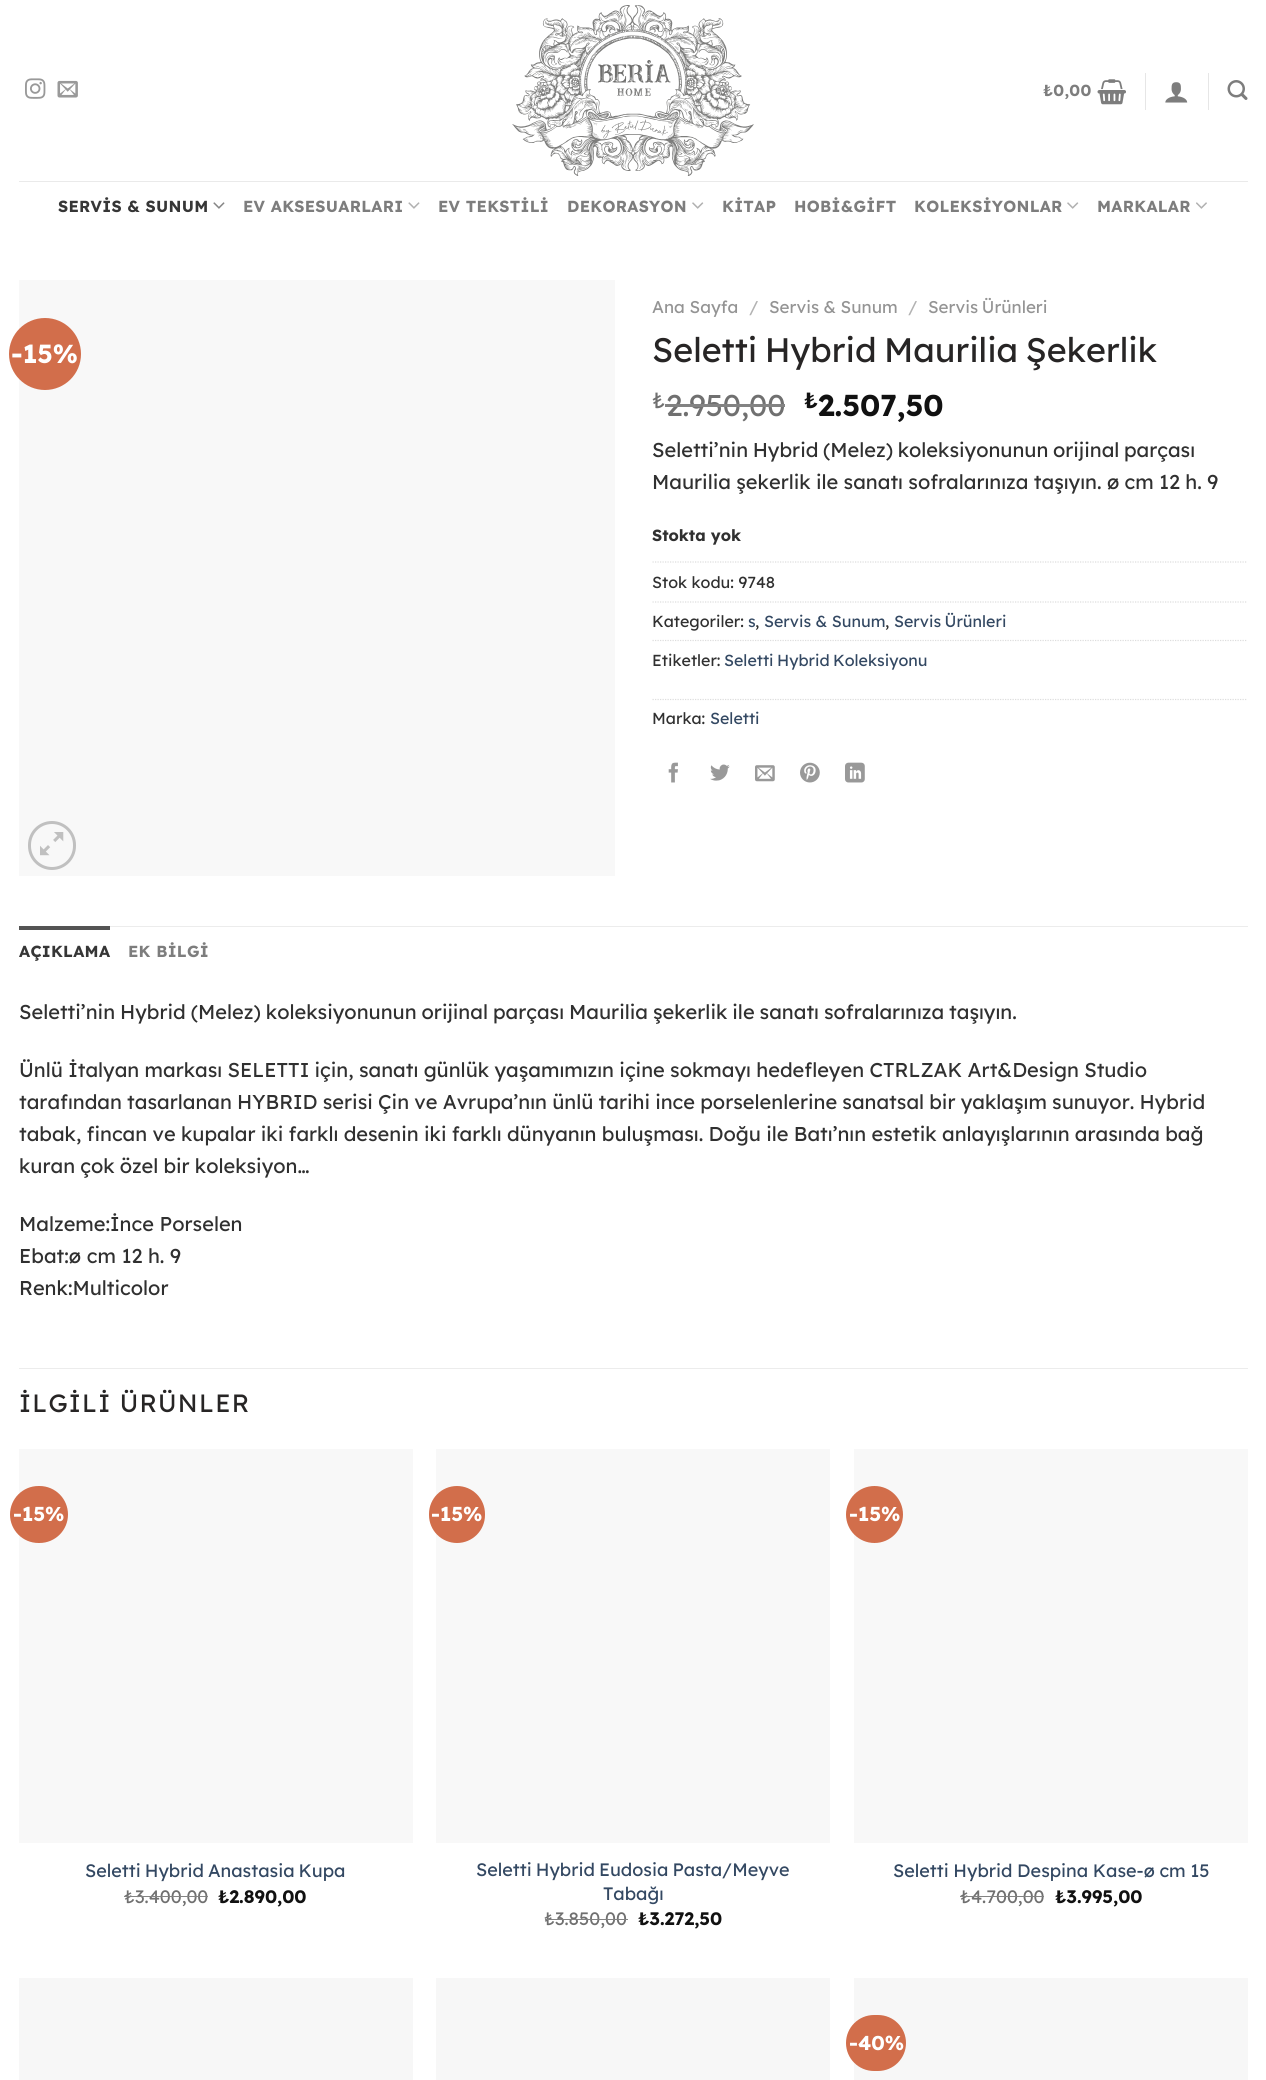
import math
import cairo

surface = cairo.ImageSurface(cairo.FORMAT_RGB24, 1266, 2080)
c = cairo.Context(surface)
options = cairo.FontOptions()
options.set_hint_metrics(cairo.HINT_METRICS_OFF)
options.set_hint_style(cairo.HINT_STYLE_NONE)
c.set_font_options(options)
c.set_miter_limit(4)
def C(code):
 c.set_source_rgb(*(v / 255 for v in bytes.fromhex(code[-6:])))
def F(family, size, italic, bold):
 c.select_font_face(family, cairo.FONT_SLANT_ITALIC if italic else cairo.FONT_SLANT_NORMAL, cairo.FONT_WEIGHT_BOLD if bold else cairo.FONT_WEIGHT_NORMAL)
 c.set_font_size(size)
def T(x, y, s):
 c.move_to(x, y)
 c.show_text(s)
def L(x, y, s, letter, word):
 c.move_to(x, y)
 for ch in s:
  c.show_text(ch)
  c.rel_move_to(letter + word * (ch == ' '), 0)
def R(x, y, w, h):
 c.rectangle(x, y, w, h)
 c.fill()
def Q(x, y, w, h, r):
 c.new_sub_path()
 for i, (u, v) in enumerate([(x + w - r, y + h - r), (x + r, y + h - r), (x + r, y + r), (x + w - r, y + r)]):
  c.arc(u, v, r, i * math.pi / 2, (i + 1) * math.pi / 2)
 c.close_path()
def I(path, x, y, w, h):
 c.save()
 c.set_source_surface(cairo.ImageSurface.create_from_png(path), x, y)
 c.rectangle(x, y, w, h)
 c.fill()
 c.restore()
C('ffffff')
c.paint()
I('1.png',25,78,21,21)
I('2.png',57,80,21,18)
I('3.png',512,5,242,171)
F('Lexend',16,0,1)
C('7d7d7d')
L(1043,96,'₺0,00',.3,0)
I('4.png',1097,79,29,26)
C('e6e6e6')
R(1145,73,1,37)
I('5.png',1165,82,23,21)
R(1208,73,1,37)
I('6.png',1227,80,21,20)
C('eaeaea')
R(19,181,1229,1)
C('363636')
L(58,212,'SERVİS & SUNUM',.3,0)
I('7.png',213,202,12,7)
C('7d7d7d')
L(243,212,'EV AKSESUARLARI',.3,0)
I('8.png',408,202,12,7)
L(438,212,'EV TEKSTİLİ',.3,0)
L(567,212,'DEKORASYON',.3,0)
I('9.png',692,202,12,7)
L(722,212,'KİTAP',.3,0)
L(794,212,'HOBİ&GİFT',.3,0)
L(914,212,'KOLEKSİYONLAR',.3,0)
I('9.png',1067,202,12,7)
L(1097,212,'MARKALAR',.3,0)
I('10.png',1196,202,11,7)
C('f8f8f8')
R(19,280,596,596)
C('d26e4b')
c.arc(45,354,36,0,2 * math.pi)
c.fill()
F('Lexend',26,0,1)
C('ffffff')
T(11,363,'-15%')
Q(29.5,822.5,45,46,22.5)
C('c0c0c0')
c.set_line_width(3)
c.stroke()
I('11.png',40,832,24,24)
F('Lexend',17,0,0)
C('949494')
T(652,313,'Ana Sayfa')
C('b2b2b2')
T(749,313,'/')
C('949494')
L(769,313,'Servis & Sunum',0,-.25)
C('b2b2b2')
T(908,313,'/')
C('949494')
L(928,313,'Servis Ürünleri',0,-1)
F('Lexend',34,0,0)
C('272525')
L(652,362,'Seletti Hybrid Maurilia Şekerlik',0,-2)
F('Lexend',22,0,0)
C('707070')
T(652,408,'₺')
F('Lexend',30,0,0)
T(666,416,'2.950,00')
C('838383')
R(665,404,120,3)
F('Lexend',22,0,1)
C('111111')
T(804,408,'₺')
F('Lexend',30,0,1)
T(818,416,'2.507,50')
F('Lexend',20,0,0)
C('303030')
L(652,457,'Seletti’nin Hybrid (Melez) koleksiyonunun orijinal parçası',0,-1)
L(652,489,'Maurilia şekerlik ile sanatı sofralarınıza taşıyın. ø cm 12 h. 9',0,-.25)
F('Lexend',16,0,1)
T(652,541,'Stokta yok')
c.new_path()
c.move_to(652.5,562)
c.line_to(1247.5,562)
C('dddddd')
c.set_line_width(1.2)
c.set_dash([1.25,1.25])
c.stroke()
F('Lexend',16,0,0)
C('303030')
T(652,588,'Stok kodu: 9748')
c.new_path()
c.move_to(652.5,602)
c.line_to(1247.5,602)
C('dddddd')
c.stroke()
C('303030')
T(652,627,'Kategoriler:')
C('334862')
T(748,627,'s')
C('303030')
T(755,627,',')
C('334862')
T(764,627,'Servis & Sunum')
C('303030')
T(885,627,',')
C('334862')
L(894,627,'Servis Ürünleri',0,-1)
c.new_path()
c.move_to(652.5,640.5)
c.line_to(1247.5,640.5)
C('dddddd')
c.stroke()
C('303030')
T(652,666,'Etiketler:')
C('334862')
L(724,666,'Seletti Hybrid Koleksiyonu',0,-1)
c.new_path()
c.move_to(652.5,699.5)
c.line_to(1247.5,699.5)
C('dddddd')
c.stroke()
C('303030')
T(652,724,'Marka:')
C('334862')
T(710,724,'Seletti')
I('12.png',668,762,10,21)
I('13.png',710,764,20,17)
I('14.png',755,765,20,17)
I('15.png',800,762,20,21)
I('16.png',845,762,20,21)
C('ececec')
R(110,926,1138,1)
C('545454')
R(19,926,91,4)
F('Lexend',16,0,1)
C('363636')
L(19,957,'AÇIKLAMA',.3,0)
C('7d7d7d')
L(128,957,'EK BİLGİ',.3,0)
F('Lexend',20,0,0)
C('303030')
L(19,1019,'Seletti’nin Hybrid (Melez) koleksiyonunun orijinal parçası Maurilia şekerlik ile sanatı sofralarınıza taşıyın.',0,-.6)
L(19,1077,'Ünlü İtalyan markası SELETTI için, sanatı günlük yaşamımızın içine sokmayı hedefleyen CTRLZAK Art&Design Studio',0,-.25)
L(19,1109,'tarafından tasarlanan HYBRID serisi Çin ve Avrupa’nın ünlü tarihi ince porselenlerine sanatsal bir yaklaşım sunuyor. Hybrid',0,-.4)
L(19,1141,'tabak, fincan ve kupalar iki farklı desenin iki farklı dünyanın buluşması. Doğu ile Batı’nın estetik anlayışlarının arasında bağ',0,-.3)
L(19,1173,'kuran çok özel bir koleksiyon…',0,-.5)
T(19,1231,'Malzeme:İnce Porselen')
T(19,1263,'Ebat:ø cm 12 h. 9')
T(19,1295,'Renk:Multicolor')
C('ececec')
R(19,1368,1229,1)
F('Lexend',25,0,0)
C('272525')
L(19,1412,'İLGİLİ ÜRÜNLER',1.25,0)
C('f8f8f8')
R(19,1449,394,394)
C('d26e4b')
Q(10,1486,58,57,28.5)
c.fill()
F('Lexend',20,0,1)
C('ffffff')
T(13,1521,'-15%')
F('Lexend',18,0,0)
C('334862')
L(85,1877,'Seletti Hybrid Anastasia Kupa',0,-1)
C('707070')
T(124,1903,'₺')
C('838383')
R(124,1896,11,1)
C('707070')
T(135,1903,'3.400,00')
C('838383')
R(135,1896,73,1)
F('Lexend',18,0,1)
C('111111')
T(218,1903,'₺2.890,00')
C('f8f8f8')
R(436,1449,394,394)
C('d26e4b')
Q(429,1486,56,57,28)
c.fill()
F('Lexend',20,0,1)
C('ffffff')
T(431,1521,'-15%')
F('Lexend',18,0,0)
C('334862')
L(476,1876,'Seletti Hybrid Eudosia Pasta/Meyve',0,-1)
T(603,1900,'Tabağı')
C('707070')
T(544,1925,'₺3.850,00')
C('838383')
R(545,1919,83,1)
F('Lexend',18,0,1)
C('111111')
T(638,1925,'₺3.272,50')
C('f8f8f8')
R(854,1449,394,394)
C('d26e4b')
c.new_path()
c.arc(874.5,1514.5,28.5,0,2 * math.pi)
c.fill()
F('Lexend',20,0,1)
C('ffffff')
T(849,1521,'-15%')
F('Lexend',18,0,0)
C('334862')
L(893,1877,'Seletti Hybrid Despina Kase-ø cm 15',0,-.4)
C('707070')
T(960,1903,'₺4.700,00')
C('838383')
R(960,1896,84,1)
F('Lexend',18,0,1)
C('111111')
T(1055,1903,'₺3.995,00')
C('f7f7f7')
R(19,1978,394,102)
R(436,1978,394,102)
R(854,1978,394,102)
C('d26e4b')
Q(846,2015,60,56,28)
c.fill()
F('Lexend',20,0,1)
C('ffffff')
T(849,2050,'-40%')
surface.write_to_png('o.png')
